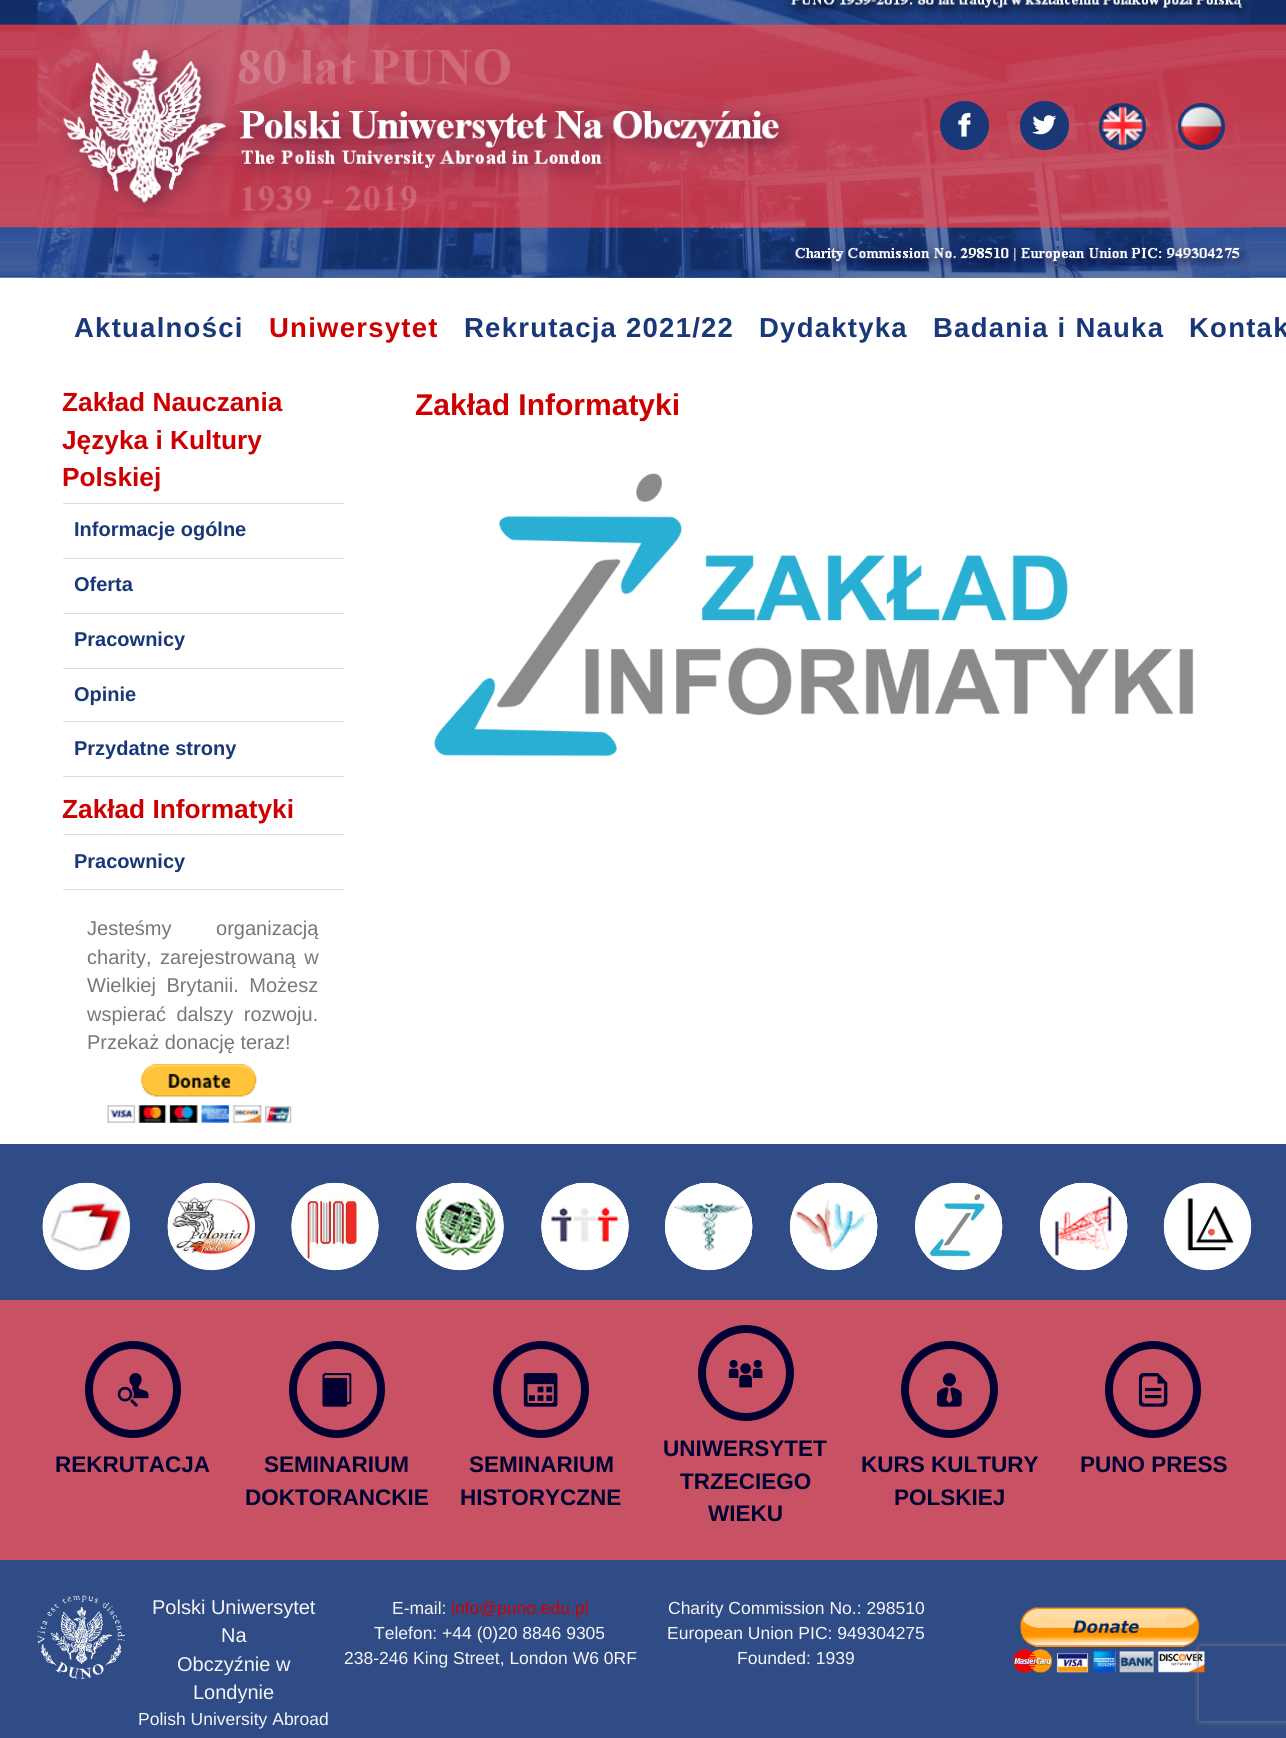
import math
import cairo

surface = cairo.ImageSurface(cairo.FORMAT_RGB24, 1286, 1738)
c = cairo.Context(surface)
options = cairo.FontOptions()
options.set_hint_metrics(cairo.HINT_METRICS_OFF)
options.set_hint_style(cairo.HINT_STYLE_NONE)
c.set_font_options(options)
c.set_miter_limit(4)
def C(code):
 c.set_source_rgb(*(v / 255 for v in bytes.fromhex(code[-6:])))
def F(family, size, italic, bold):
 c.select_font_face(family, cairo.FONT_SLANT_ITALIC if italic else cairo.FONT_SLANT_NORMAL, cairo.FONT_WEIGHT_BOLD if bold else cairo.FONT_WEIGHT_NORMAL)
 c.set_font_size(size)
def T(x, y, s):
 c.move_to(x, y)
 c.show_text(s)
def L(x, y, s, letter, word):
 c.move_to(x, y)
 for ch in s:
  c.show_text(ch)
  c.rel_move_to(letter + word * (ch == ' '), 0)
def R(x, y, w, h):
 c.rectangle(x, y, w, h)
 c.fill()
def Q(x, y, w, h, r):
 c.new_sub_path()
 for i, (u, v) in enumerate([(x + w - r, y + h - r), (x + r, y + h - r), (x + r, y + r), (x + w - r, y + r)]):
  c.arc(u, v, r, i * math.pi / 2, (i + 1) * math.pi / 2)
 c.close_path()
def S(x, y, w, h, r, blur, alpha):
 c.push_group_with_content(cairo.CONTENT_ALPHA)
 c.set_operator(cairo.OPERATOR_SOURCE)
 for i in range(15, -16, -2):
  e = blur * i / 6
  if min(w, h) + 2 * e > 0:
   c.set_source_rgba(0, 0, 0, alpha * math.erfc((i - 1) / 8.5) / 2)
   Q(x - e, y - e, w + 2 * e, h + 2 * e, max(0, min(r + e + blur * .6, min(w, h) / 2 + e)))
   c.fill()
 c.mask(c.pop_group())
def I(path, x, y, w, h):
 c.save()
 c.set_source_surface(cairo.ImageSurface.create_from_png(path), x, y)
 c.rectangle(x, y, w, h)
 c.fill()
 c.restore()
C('ffffff')
c.paint()
I('1.png',0,0,1286,278)
I('2.png',37,0,1213,278)
C('183877')
c.arc(964.5,125.5,24.5,0,2 * math.pi)
c.fill()
I('3.png',958,112,13,25)
c.arc(1044.5,125.5,24.5,0,2 * math.pi)
c.fill()
I('4.png',1032,115,25,20)
c.arc(1122.5,126.5,23.5,0,2 * math.pi)
c.fill()
I('5.png',1102,106,41,40)
c.arc(1201.5,126.5,23.5,0,2 * math.pi)
c.fill()
I('6.png',1181,106,41,40)
F('Liberation Sans',27.5,0,1)
C('193878')
L(74,337,'Aktualności',1.25,0)
C('cc0000')
L(269,337,'Uniwersytet',1.25,0)
C('193878')
L(464,337,'Rekrutacja 2021/22',1.25,0)
L(759,337,'Dydaktyka',1.25,0)
L(933,337,'Badania i Nauka',1.25,0)
L(1189,337,'Kontak',1.25,0)
C('dddddd')
R(63,503,281,1)
F('Liberation Sans',26.25,0,1)
C('cc0000')
T(62,411,'Zakład Nauczania')
T(62,449,'Języka i Kultury')
T(62,486,'Polskiej')
C('dddddd')
R(63,558,281,1)
F('Liberation Sans',20,0,1)
C('193878')
T(74,536,'Informacje ogólne')
C('dddddd')
R(63,613,281,1)
C('193878')
T(74,591,'Oferta')
C('dddddd')
R(63,668,281,1)
C('193878')
T(74,646,'Pracownicy')
C('dddddd')
R(63,721,281,1)
C('193878')
T(74,701,'Opinie')
C('dddddd')
R(63,776,281,1)
C('193878')
T(74,755,'Przydatne strony')
C('dddddd')
R(63,834,281,1)
F('Liberation Sans',26.25,0,1)
C('cc0000')
T(62,818,'Zakład Informatyki')
C('dddddd')
R(63,889,281,1)
F('Liberation Sans',20,0,1)
C('193878')
T(74,868,'Pracownicy')
F('Liberation Sans',20,0,0)
C('777777')
L(87,935,'Jesteśmy organizacją',0,39)
L(87,964,'charity, zarejestrowaną w',0,3)
L(87,992,'Wielkiej Brytanii. Możesz',0,5)
L(87,1021,'wspierać dalszy rozwoju.',0,5)
T(87,1049,'Przekaż donację teraz!')
I('7.png',107,1064,185,59)
F('Liberation Sans',30,0,1)
C('cc0000')
T(415,415,'Zakład Informatyki')
I('8.png',434,473,760,284)
C('304c86')
R(0,1144,1286,156)
I('9.png',42,1182,88,89)
I('10.png',42,1182,88,89)
I('11.png',167,1182,88,89)
I('12.png',167,1182,88,89)
C('183877')
Q(291,1183,88,87,43.5)
c.fill()
I('13.png',291,1182,88,89)
I('14.png',291,1182,88,89)
Q(416,1183,88,87,43.5)
c.fill()
I('15.png',416,1182,88,89)
I('16.png',416,1182,88,89)
Q(541,1183,88,87,43.5)
c.fill()
I('17.png',541,1182,88,89)
I('18.png',541,1182,88,89)
Q(665,1183,88,87,43.5)
c.fill()
I('19.png',665,1182,88,89)
I('20.png',665,1182,88,89)
Q(790,1183,88,87,43.5)
c.fill()
I('21.png',790,1182,88,89)
I('22.png',790,1182,88,89)
Q(915,1183,88,87,43.5)
c.fill()
I('23.png',915,1182,88,89)
I('24.png',915,1182,88,89)
Q(1040,1183,88,87,43.5)
c.fill()
I('25.png',1040,1182,88,89)
I('26.png',1040,1182,88,89)
I('27.png',1163,1182,89,89)
I('28.png',1163,1182,89,89)
C('c85263')
R(0,1300,1286,260)
Q(89,1345,88,89,44)
C('000033')
c.set_line_width(8)
c.stroke()
I('29.png',117,1373,32,34)
F('Liberation Sans',22.5,0,1)
T(55,1472,'REKRUTACJA')
Q(293,1345,88,89,44)
c.stroke()
I('30.png',322,1373,30,34)
T(264,1472,'SEMINARIUM')
T(245,1505,'DOKTORANCKIE')
Q(497,1345,88,89,44)
c.stroke()
I('31.png',523,1373,35,34)
T(469,1472,'SEMINARIUM')
T(460,1505,'HISTORYCZNE')
c.new_path()
c.arc(746,1373,44,0,2 * math.pi)
c.stroke()
I('32.png',728,1359,35,29)
T(663,1456,'UNIWERSYTET')
T(680,1489,'TRZECIEGO')
T(708,1521,'WIEKU')
c.new_path()
c.arc(949.5,1389.5,44.5,0,2 * math.pi)
c.stroke()
I('33.png',937,1373,25,34)
T(861,1472,'KURS KULTURY')
T(894,1505,'POLSKIEJ')
Q(1109,1345,88,89,44)
c.stroke()
I('34.png',1138,1373,30,34)
T(1080,1472,'PUNO PRESS')
C('304c86')
R(0,1560,1286,178)
I('35.png',37,1595,88,84)
F('Liberation Sans',20,0,0)
C('f5f5f5')
T(152,1614,'Polski Uniwersytet')
T(221,1642,'Na')
T(177,1671,'Obczyźnie w')
T(193,1699,'Londynie')
F('Liberation Sans',17.5,0,0)
T(138,1725,'Polish University Abroad')
T(392,1614,'E-mail:')
C('cc0000')
T(451,1614,'info@puno.edu.pl')
C('f5f5f5')
T(374,1639,'Telefon: +44 (0)20 8846 9305')
T(344,1664,'238-246 King Street, London W6 0RF')
T(668,1614,'Charity Commission No.: 298510')
T(667,1639,'European Union PIC: 949304275')
T(737,1664,'Founded: 1939')
I('36.png',1012,1607,193,66)
c.save()
c.set_fill_rule(cairo.FILL_RULE_EVEN_ODD)
c.new_path()
c.move_to(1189,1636)
c.line_to(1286,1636)
c.line_to(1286,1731)
c.line_to(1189,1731)
c.close_path()
c.move_to(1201.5,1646)
c.line_to(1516.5,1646)
c.curve_to(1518,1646,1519,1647,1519,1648.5)
c.line_to(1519,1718.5)
c.curve_to(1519,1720,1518,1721,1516.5,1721)
c.line_to(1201.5,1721)
c.curve_to(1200,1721,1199,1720,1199,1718.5)
c.line_to(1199,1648.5)
c.curve_to(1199,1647,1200,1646,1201.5,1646)
c.close_path()
c.clip()
C('808080')
S(1199,1646,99,75,2.5,3,1)
c.restore()
surface.write_to_png('o.png')
